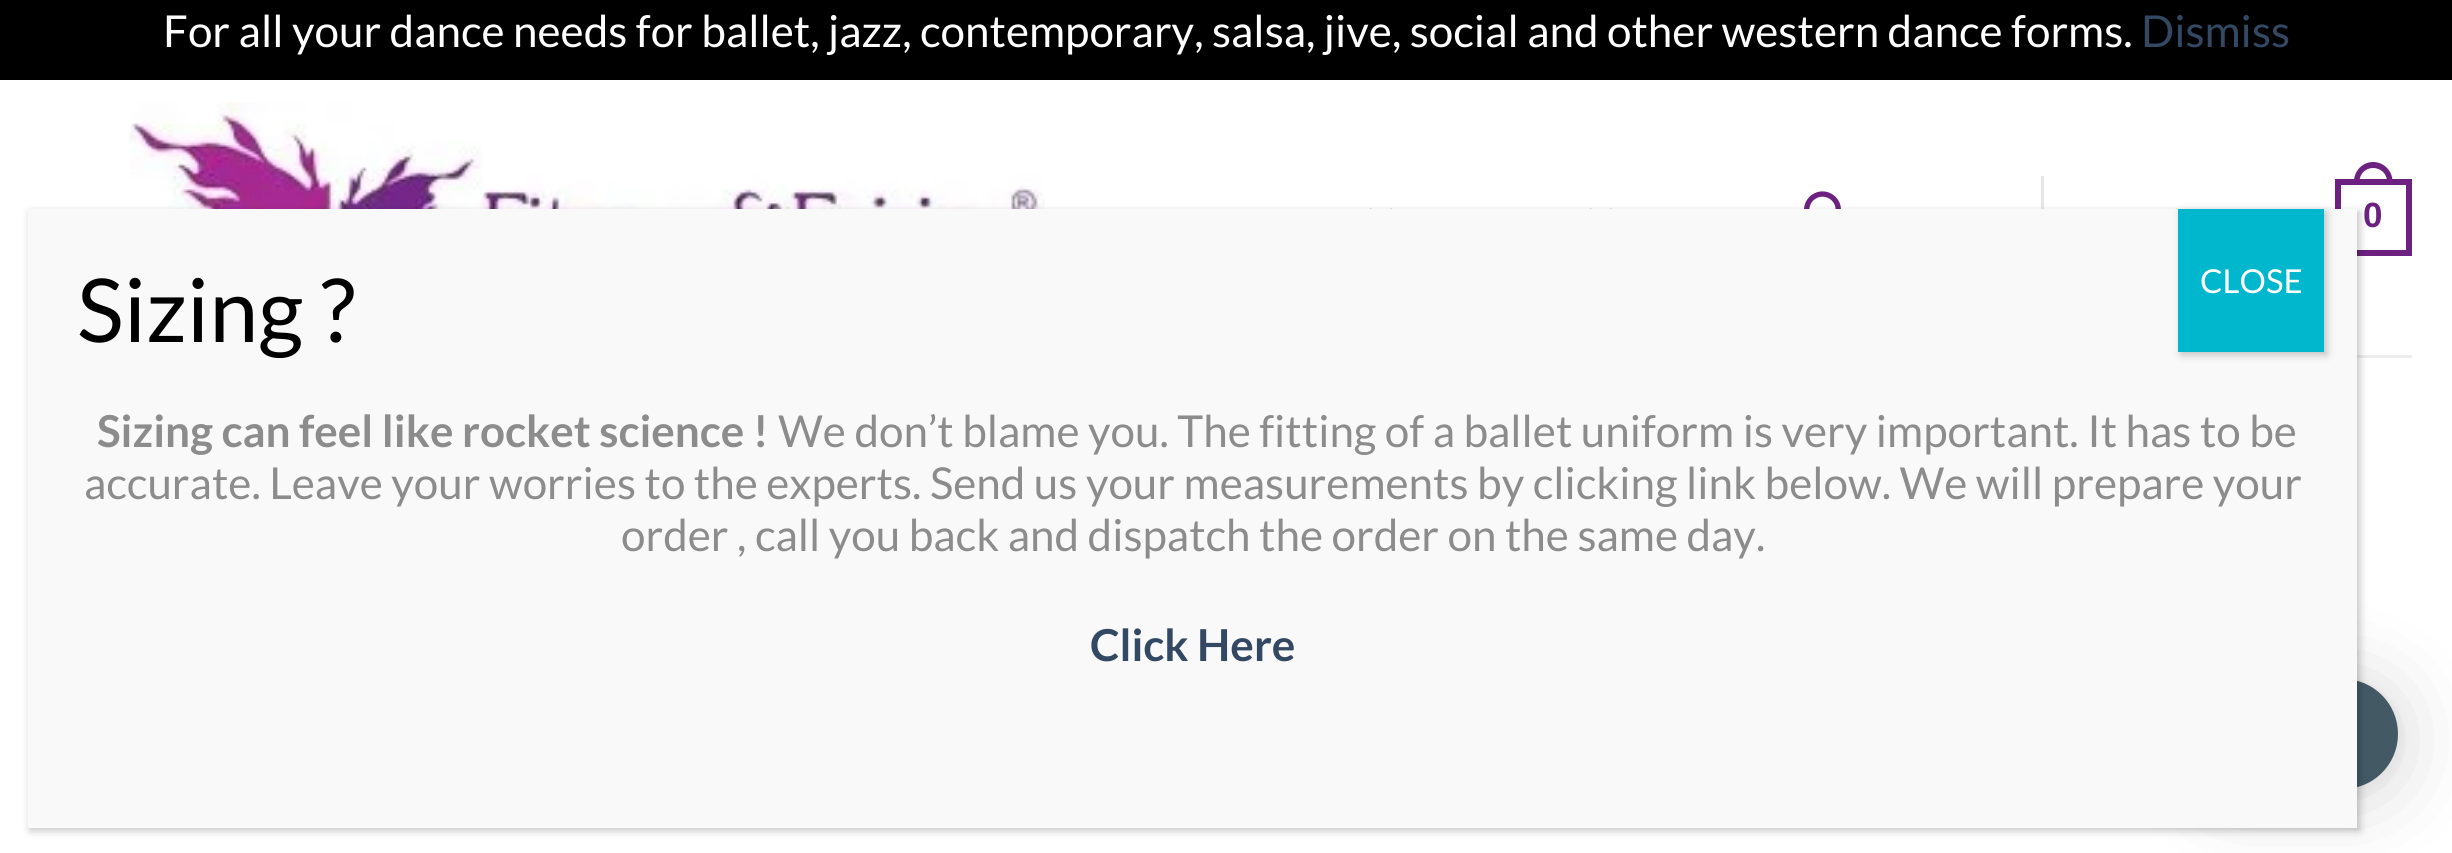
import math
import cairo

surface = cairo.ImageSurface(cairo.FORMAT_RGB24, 2452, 853)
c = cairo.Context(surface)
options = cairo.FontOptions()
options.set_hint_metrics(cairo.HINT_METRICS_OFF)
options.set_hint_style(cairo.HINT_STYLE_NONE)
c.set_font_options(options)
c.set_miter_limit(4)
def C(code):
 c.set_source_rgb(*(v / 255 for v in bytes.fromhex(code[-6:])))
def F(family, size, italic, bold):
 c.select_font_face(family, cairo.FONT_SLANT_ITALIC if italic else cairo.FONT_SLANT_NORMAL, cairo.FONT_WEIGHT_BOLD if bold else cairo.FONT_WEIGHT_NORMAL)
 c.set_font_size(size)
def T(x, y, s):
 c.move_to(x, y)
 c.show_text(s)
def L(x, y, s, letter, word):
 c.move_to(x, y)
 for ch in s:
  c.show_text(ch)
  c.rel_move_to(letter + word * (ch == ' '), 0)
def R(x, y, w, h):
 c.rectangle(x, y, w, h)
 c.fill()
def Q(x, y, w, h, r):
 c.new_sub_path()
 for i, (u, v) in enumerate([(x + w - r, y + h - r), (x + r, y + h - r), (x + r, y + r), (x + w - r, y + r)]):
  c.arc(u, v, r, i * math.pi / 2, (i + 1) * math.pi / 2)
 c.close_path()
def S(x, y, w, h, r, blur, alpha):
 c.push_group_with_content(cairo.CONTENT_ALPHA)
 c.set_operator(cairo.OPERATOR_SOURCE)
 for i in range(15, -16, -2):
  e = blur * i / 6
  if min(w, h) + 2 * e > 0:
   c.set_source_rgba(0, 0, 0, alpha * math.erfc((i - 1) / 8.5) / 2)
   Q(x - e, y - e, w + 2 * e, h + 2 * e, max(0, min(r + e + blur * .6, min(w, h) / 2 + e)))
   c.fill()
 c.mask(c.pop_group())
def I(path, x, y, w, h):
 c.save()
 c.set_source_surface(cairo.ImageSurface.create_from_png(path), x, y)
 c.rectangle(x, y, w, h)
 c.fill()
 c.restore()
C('ffffff')
c.paint()
C('000000')
R(0,0,2452,80)
F('Lato',44,0,0)
C('ffffff')
T(163,47,'For all your dance needs for ballet, jazz, contemporary, salsa, jive, social and other western dance forms.')
C('334862')
T(2141,47,'Dismiss')
I('1.png',129,102,916,107)
I('2.png',1370,208,22,1)
I('2.png',1590,208,22,1)
I('3.png',1804,191,37,18)
C('e6e6e6')
R(2041,176,3,33)
c.rectangle(2338,182,71,71)
C('6c2180')
c.set_line_width(6)
c.stroke()
c.set_fill_rule(cairo.FILL_RULE_EVEN_ODD)
c.new_path()
c.move_to(2373,162)
c.curve_to(2384,162,2392.5,171,2392.5,181.5)
c.line_to(2392.5,184)
c.line_to(2354,184)
c.line_to(2354,181.5)
c.curve_to(2354,171,2362.5,162,2373,162)
c.close_path()
c.move_to(2373,168)
c.curve_to(2381,168,2387,174,2387,181.5)
c.line_to(2387,184)
c.line_to(2359.5,184)
c.line_to(2359.5,181.5)
c.curve_to(2359.5,174,2365.5,168,2373,168)
c.close_path()
c.fill()
F('Liberation Sans',35,0,1)
L(2363,227,'0',1,0)
C('ededed')
R(2357,355,55,3)
C('000000')
S(2200,685,198,110,55,44,.16)
S(2200,682,198,110,55,8,.06)
C('435a64')
Q(2200,679,198,110,55)
c.fill()
C('020202')
S(30,212,2330,619,0,4,.23)
C('f9f9f9')
R(28,209,2329,619)
F('Lato',88,0,0)
C('000000')
T(77,342,'Sizing ?')
C('020202')
S(2181,212,146,143,0,4,.23)
C('00b7cd')
R(2178,209,146,143)
F('Lato',33,0,0)
C('ffffff')
T(2200,293,'CLOSE')
F('Lato',44,0,1)
C('8c8c8c')
T(97,447,'Sizing can feel like rocket science !')
F('Lato',44,0,0)
T(778,447,'We don’t blame you. The fitting of a ballet uniform is very important. It has to be')
T(84,499,'accurate. Leave your worries to the experts. Send us your measurements by clicking link below. We will prepare your')
T(621,551,'order , call you back and dispatch the order on the same day.')
F('Lato',44,0,1)
C('334862')
T(1090,661,'Click Here')
surface.write_to_png('o.png')
